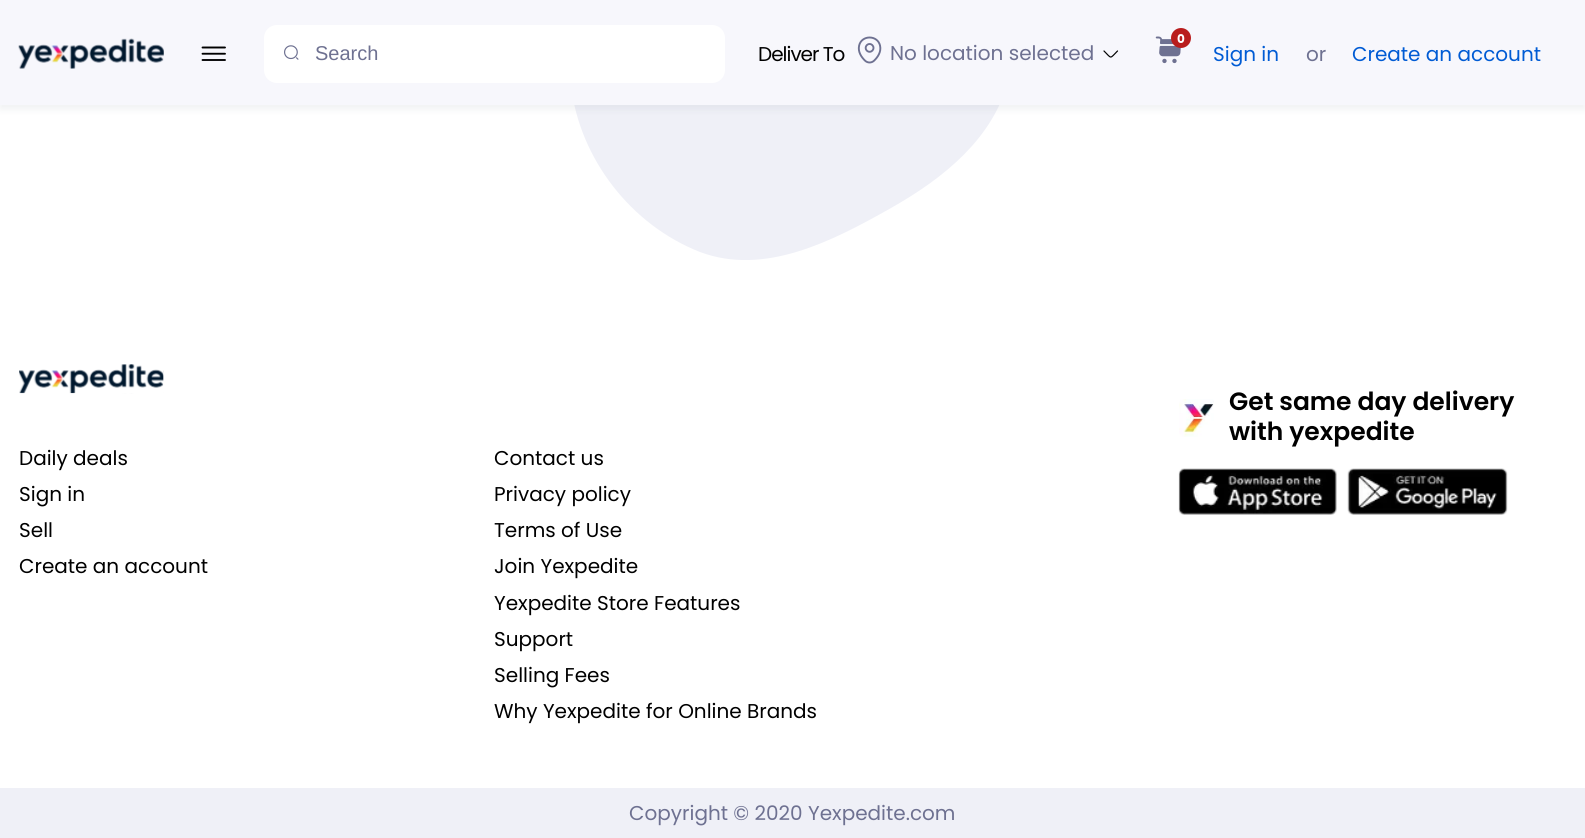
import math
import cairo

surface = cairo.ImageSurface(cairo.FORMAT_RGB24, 1585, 838)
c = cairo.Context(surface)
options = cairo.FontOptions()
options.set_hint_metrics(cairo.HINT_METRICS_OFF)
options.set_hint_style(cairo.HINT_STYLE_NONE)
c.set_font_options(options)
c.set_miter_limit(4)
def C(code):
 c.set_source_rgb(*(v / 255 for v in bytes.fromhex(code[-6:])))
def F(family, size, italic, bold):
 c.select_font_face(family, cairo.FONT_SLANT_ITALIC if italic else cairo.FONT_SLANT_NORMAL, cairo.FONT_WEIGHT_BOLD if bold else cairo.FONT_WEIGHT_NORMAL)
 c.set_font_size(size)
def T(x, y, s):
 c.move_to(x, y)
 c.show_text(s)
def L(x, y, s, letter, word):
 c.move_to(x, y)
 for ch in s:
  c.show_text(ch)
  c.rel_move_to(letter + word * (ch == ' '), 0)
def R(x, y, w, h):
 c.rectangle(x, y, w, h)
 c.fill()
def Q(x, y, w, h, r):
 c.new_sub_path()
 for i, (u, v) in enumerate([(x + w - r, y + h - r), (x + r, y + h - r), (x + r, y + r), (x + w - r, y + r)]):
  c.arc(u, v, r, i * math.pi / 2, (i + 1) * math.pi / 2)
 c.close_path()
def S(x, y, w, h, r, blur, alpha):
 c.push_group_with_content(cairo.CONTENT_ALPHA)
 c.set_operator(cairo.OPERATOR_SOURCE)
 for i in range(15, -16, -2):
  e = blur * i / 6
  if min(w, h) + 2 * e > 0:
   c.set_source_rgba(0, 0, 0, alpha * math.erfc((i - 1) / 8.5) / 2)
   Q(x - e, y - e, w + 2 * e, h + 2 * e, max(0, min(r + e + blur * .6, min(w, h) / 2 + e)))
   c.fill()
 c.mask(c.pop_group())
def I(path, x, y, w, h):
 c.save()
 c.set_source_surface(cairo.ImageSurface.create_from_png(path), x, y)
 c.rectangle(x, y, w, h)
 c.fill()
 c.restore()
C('ffffff')
c.paint()
C('eff0f7')
c.set_fill_rule(cairo.FILL_RULE_EVEN_ODD)
c.new_path()
c.move_to(806,-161)
c.curve_to(867,-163,928,-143,967,-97)
c.curve_to(1008,-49,1025,17,1009,78)
c.curve_to(994,138,944,178,891,208)
c.curve_to(831,242,764,276,700,252)
c.curve_to(631,225,580,159,571,86)
c.curve_to(562,19,611,-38,657,-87)
c.curve_to(698,-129,748,-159,806,-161)
c.close_path()
c.fill()
C('969ea6')
S(0,4,1585,105,0,4,.15)
C('f7f7fc')
R(0,0,1585,105)
I('1.png',18,38,146,31)
I('2.png',201,46,25,15)
C('ffffff')
Q(264,25,461,58,13)
c.fill()
I('3.png',284,45,15,15)
F('Liberation Sans',20,0,0)
C('6e7191')
T(315,60,'Search')
F('Poppins',20,0,0)
C('000000')
L(758,61,'Deliver To',-1,0)
I('4.png',857,36,25,28)
C('6e7191')
T(890,60,'No location selected')
c.new_path()
c.move_to(1117.5,51)
c.curve_to(1109.5,59,1112,59,1104,51)
C('000000')
c.set_line_width(1.2)
c.set_line_cap(cairo.LINE_CAP_ROUND)
c.set_line_join(cairo.LINE_JOIN_ROUND)
c.stroke()
I('5.png',1155,36,26,28)
C('b91c1c')
c.arc(1181,38,10,0,2 * math.pi)
c.fill()
F('Poppins',12,0,1)
C('ffffff')
T(1177,43,'0')
F('Poppins',20,0,0)
C('005bd4')
T(1213,61,'Sign in')
C('6e7191')
T(1306,61,'or')
C('005bd4')
T(1352,61,'Create an account')
I('6.png',1179,399,35,38)
F('Poppins SemiBold',25,0,0)
C('000000')
T(1229,410,'Get same day delivery')
T(1229,440,'with yexpedite')
I('7.png',1178,468,159,47)
I('8.png',1347,468,161,47)
I('9.png',19,364,145,30)
F('Poppins',20,0,0)
T(19,465,'Daily deals')
T(19,501,'Sign in')
T(19,537,'Sell')
T(19,573,'Create an account')
T(494,465,'Contact us')
T(494,501,'Privacy policy')
T(494,537,'Terms of Use')
T(494,573,'Join Yexpedite')
T(494,610,'Yexpedite Store Features')
T(494,646,'Support')
T(494,682,'Selling Fees')
T(494,718,'Why Yexpedite for Online Brands')
C('eff0f7')
R(0,788,1585,50)
C('6e7191')
T(629,820,'Copyright © 2020 Yexpedite.com')
surface.write_to_png('o.png')
